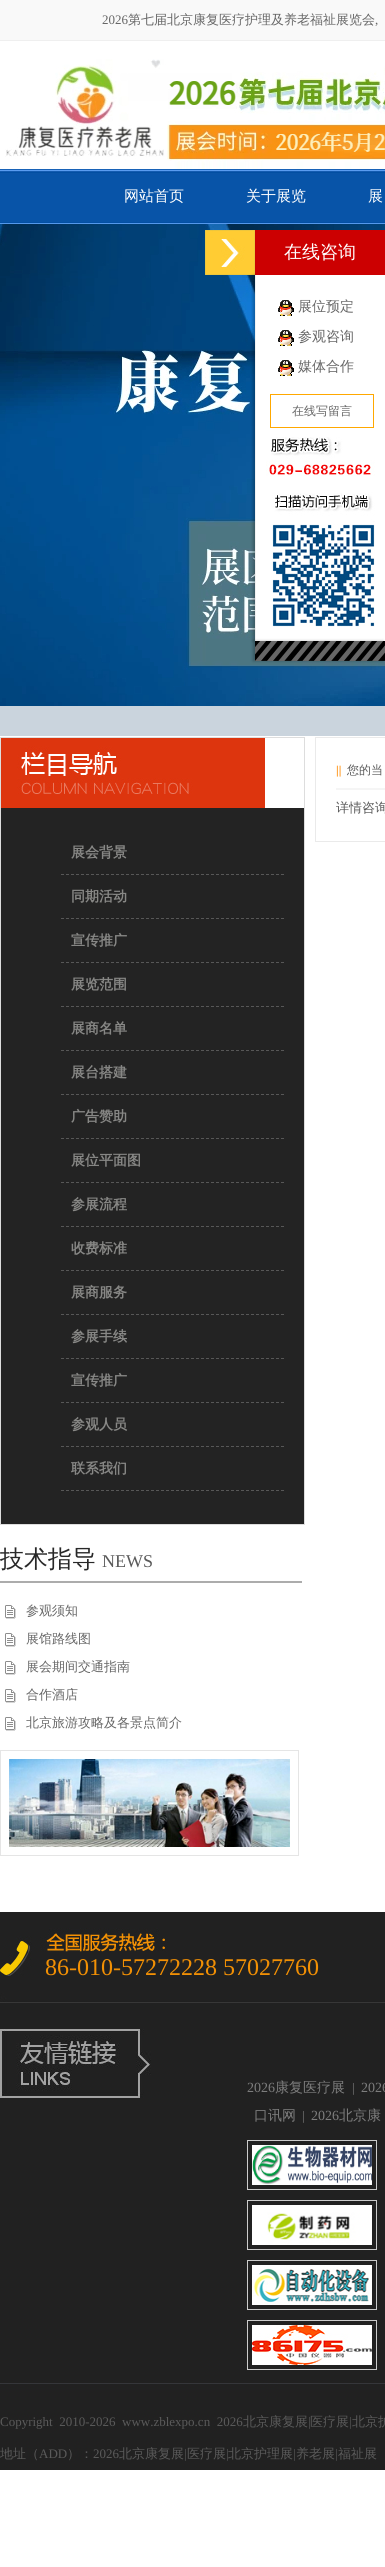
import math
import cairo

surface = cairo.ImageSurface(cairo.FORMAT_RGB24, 385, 2567)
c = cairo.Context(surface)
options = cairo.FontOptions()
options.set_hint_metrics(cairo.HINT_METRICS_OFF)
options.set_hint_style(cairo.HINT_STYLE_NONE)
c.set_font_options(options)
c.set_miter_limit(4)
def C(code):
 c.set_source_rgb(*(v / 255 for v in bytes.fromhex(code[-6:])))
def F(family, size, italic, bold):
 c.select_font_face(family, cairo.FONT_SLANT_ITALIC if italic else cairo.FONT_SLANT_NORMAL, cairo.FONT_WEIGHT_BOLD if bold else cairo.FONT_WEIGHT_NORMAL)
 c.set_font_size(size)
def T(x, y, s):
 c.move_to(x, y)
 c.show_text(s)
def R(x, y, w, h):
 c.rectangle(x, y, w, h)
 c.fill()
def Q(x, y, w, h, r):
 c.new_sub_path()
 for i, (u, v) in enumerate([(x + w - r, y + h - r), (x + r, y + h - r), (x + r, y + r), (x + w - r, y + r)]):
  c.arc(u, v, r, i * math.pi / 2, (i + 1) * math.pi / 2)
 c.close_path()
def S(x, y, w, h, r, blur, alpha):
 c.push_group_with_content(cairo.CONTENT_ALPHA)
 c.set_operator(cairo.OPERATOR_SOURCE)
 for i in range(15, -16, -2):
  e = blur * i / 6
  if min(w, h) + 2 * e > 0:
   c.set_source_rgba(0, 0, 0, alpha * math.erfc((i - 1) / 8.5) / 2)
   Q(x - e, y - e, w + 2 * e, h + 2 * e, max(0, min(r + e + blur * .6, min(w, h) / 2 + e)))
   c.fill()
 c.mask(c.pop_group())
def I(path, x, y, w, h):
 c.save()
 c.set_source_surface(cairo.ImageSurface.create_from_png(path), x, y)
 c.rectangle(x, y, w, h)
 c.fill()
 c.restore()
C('ffffff')
c.paint()
C('f9f9f9')
R(0,0,385,40)
C('efefef')
R(0,40,385,1)
F('Liberation Serif',13,0,0)
C('666666')
T(102,24,'2026')
F('WenQuanYi Zen Hei Medium',13,0,0)
T(128,24,'第七届北京康复医疗护理及养老福祉展览会')
F('Liberation Serif',13,0,0)
T(375,24,',')
I('1.png',5,59,380,110)
I('2.png',0,169,385,55)
F('WenQuanYi Zen Hei Medium',15,0,0)
C('ffffff')
T(124,201,'网站首页')
T(246,201,'关于展览')
T(368,201,'展')
I('7.png',0,224,385,482)
I('3.png',205,230,50,45)
R(256,275,129,366)
c.save()
c.rectangle(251,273,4,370)
c.clip()
C('000000')
S(253,275,130,366,0,1.5,.25)
c.restore()
C('cc0001')
R(255,230,130,45)
F('WenQuanYi Zen Hei Medium',18,0,0)
C('ffffff')
T(284,258,'在线咨询')
C('f1f1f1')
R(255,275,1,366)
I('4.png',278,300,16,16)
F('WenQuanYi Zen Hei Medium',14,0,0)
C('666666')
T(298,311,'展位预定')
I('4.png',278,330,16,16)
T(298,341,'参观咨询')
I('4.png',278,360,16,16)
T(298,371,'媒体合作')
C('ffa800')
R(270,394,104,34)
C('ffffff')
R(271,395,102,32)
F('WenQuanYi Zen Hei Medium',12,0,0)
C('666666')
T(292,415,'在线写留言')
I('5.png',266,437,109,190)
C('000000')
S(253,641,130,20,0,1.5,.25)
I('6.png',255,641,130,20)
C('cad4dd')
R(0,706,385,30)
c.rectangle(315.5,737.5,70,104)
C('eaeaea')
c.set_line_width(1)
c.stroke()
C('f5f5f5')
R(336,788,49,2)
F('Liberation Serif',12,0,1)
C('ff8900')
T(336,774,'||')
F('WenQuanYi Zen Hei Medium',12,0,0)
C('5a5a5a')
T(347,774,'您的当')
F('WenQuanYi Zen Hei Medium',13,0,0)
T(336,812,'详情咨询')
c.rectangle(.5,737.5,304,787)
C('dddddd')
c.stroke()
I('8.png',1,738,264,70)
C('232323')
R(1,808,303,716)
c.new_path()
c.move_to(61,874.5)
c.line_to(284,874.5)
C('575757')
c.set_dash([3,2])
c.stroke()
F('WenQuanYi Zen Hei',14,0,1)
C('878785')
T(71,857,'展会背景')
c.new_path()
c.move_to(61,918.5)
c.line_to(284,918.5)
C('575757')
c.stroke()
C('878785')
T(71,901,'同期活动')
c.new_path()
c.move_to(61,962.5)
c.line_to(284,962.5)
C('575757')
c.stroke()
C('878785')
T(71,945,'宣传推广')
c.new_path()
c.move_to(61,1006.5)
c.line_to(284,1006.5)
C('575757')
c.stroke()
C('878785')
T(71,989,'展览范围')
c.new_path()
c.move_to(61,1050.5)
c.line_to(284,1050.5)
C('575757')
c.stroke()
C('878785')
T(71,1033,'展商名单')
c.new_path()
c.move_to(61,1094.5)
c.line_to(284,1094.5)
C('575757')
c.stroke()
C('878785')
T(71,1077,'展台搭建')
c.new_path()
c.move_to(61,1138.5)
c.line_to(284,1138.5)
C('575757')
c.stroke()
C('878785')
T(71,1121,'广告赞助')
c.new_path()
c.move_to(61,1182.5)
c.line_to(284,1182.5)
C('575757')
c.stroke()
C('878785')
T(71,1165,'展位平面图')
c.new_path()
c.move_to(61,1226.5)
c.line_to(284,1226.5)
C('575757')
c.stroke()
C('878785')
T(71,1209,'参展流程')
c.new_path()
c.move_to(61,1270.5)
c.line_to(284,1270.5)
C('575757')
c.stroke()
C('878785')
T(71,1253,'收费标准')
c.new_path()
c.move_to(61,1314.5)
c.line_to(284,1314.5)
C('575757')
c.stroke()
C('878785')
T(71,1297,'展商服务')
c.new_path()
c.move_to(61,1358.5)
c.line_to(284,1358.5)
C('575757')
c.stroke()
C('878785')
T(71,1341,'参展手续')
c.new_path()
c.move_to(61,1402.5)
c.line_to(284,1402.5)
C('575757')
c.stroke()
C('878785')
T(71,1385,'宣传推广')
c.new_path()
c.move_to(61,1446.5)
c.line_to(284,1446.5)
C('575757')
c.stroke()
C('878785')
T(71,1429,'参观人员')
c.new_path()
c.move_to(61,1490.5)
c.line_to(284,1490.5)
C('575757')
c.stroke()
C('878785')
T(71,1473,'联系我们')
C('acacac')
R(0,1581,302,2)
F('WenQuanYi Zen Hei Medium',24,0,0)
C('282828')
T(0,1567,'技术指导')
F('Liberation Serif',18,0,0)
C('5a5a5a')
T(102,1567,'NEWS')
I('9.png',5,1605,11,14)
F('WenQuanYi Zen Hei Medium',13,0,0)
C('666666')
T(26,1615,'参观须知')
I('9.png',5,1633,11,14)
T(26,1643,'展馆路线图')
I('9.png',5,1661,11,14)
T(26,1671,'展会期间交通指南')
I('9.png',5,1689,11,14)
T(26,1699,'合作酒店')
I('9.png',5,1717,11,14)
T(26,1727,'北京旅游攻略及各景点简介')
c.rectangle(.5,1750.5,298,105)
C('e5e5e5')
c.set_dash([])
c.stroke()
I('10.png',9,1759,281,88)
C('212121')
R(0,1912,385,558)
I('11.png',0,1928,383,75)
F('Liberation Serif',24,0,0)
C('f29004')
T(45,1975,'86-010-57272228 57027760')
C('373737')
R(383,2002,2,1)
C('35363a')
R(0,2383,385,1)
I('12.png',0,2029,151,69)
F('Liberation Serif',14,0,0)
C('7d7d7d')
T(247,2092,'2026')
F('WenQuanYi Zen Hei Medium',14,0,0)
T(275,2092,'康复医疗展')
F('Liberation Serif',13,0,0)
T(352,2092,'|')
F('Liberation Serif',14,0,0)
T(361,2092,'2026')
F('WenQuanYi Zen Hei Medium',14,0,0)
T(254,2120,'口讯网')
F('Liberation Serif',13,0,0)
T(302,2120,'|')
F('Liberation Serif',14,0,0)
T(311,2120,'2026')
F('WenQuanYi Zen Hei Medium',14,0,0)
T(339,2120,'北京康')
c.rectangle(247.5,2140.5,129,49)
C('cccccc')
c.stroke()
I('13.png',252,2145,120,40)
c.rectangle(247.5,2200.5,129,49)
c.stroke()
I('14.png',252,2205,120,40)
c.rectangle(247.5,2260.5,129,49)
c.stroke()
I('15.png',252,2265,120,40)
c.rectangle(247.5,2320.5,129,49)
c.stroke()
I('16.png',252,2325,120,40)
F('Liberation Serif',13,0,0)
C('5a5a5a')
T(0,2426,'Copyright  2010-2026  www.zblexpo.cn  2026')
F('WenQuanYi Zen Hei Medium',13,0,0)
T(243,2426,'北京康复展')
F('Liberation Serif',13,0,0)
T(308,2426,'|')
F('WenQuanYi Zen Hei Medium',13,0,0)
T(310,2426,'医疗展')
F('Liberation Serif',13,0,0)
T(349,2426,'|')
F('WenQuanYi Zen Hei Medium',13,0,0)
T(352,2426,'北京护')
T(0,2458,'地址（')
F('Liberation Serif',13,0,0)
T(39,2458,'ADD')
F('WenQuanYi Zen Hei Medium',13,0,0)
T(67,2458,'）：')
F('Liberation Serif',13,0,0)
T(93,2458,'2026')
F('WenQuanYi Zen Hei Medium',13,0,0)
T(119,2458,'北京康复展')
F('Liberation Serif',13,0,0)
T(184,2458,'|')
F('WenQuanYi Zen Hei Medium',13,0,0)
T(187,2458,'医疗展')
F('Liberation Serif',13,0,0)
T(226,2458,'|')
F('WenQuanYi Zen Hei Medium',13,0,0)
T(228,2458,'北京护理展')
F('Liberation Serif',13,0,0)
T(293,2458,'|')
F('WenQuanYi Zen Hei Medium',13,0,0)
T(296,2458,'养老展')
F('Liberation Serif',13,0,0)
T(335,2458,'|')
F('WenQuanYi Zen Hei Medium',13,0,0)
T(338,2458,'福祉展')
surface.write_to_png('o.png')
